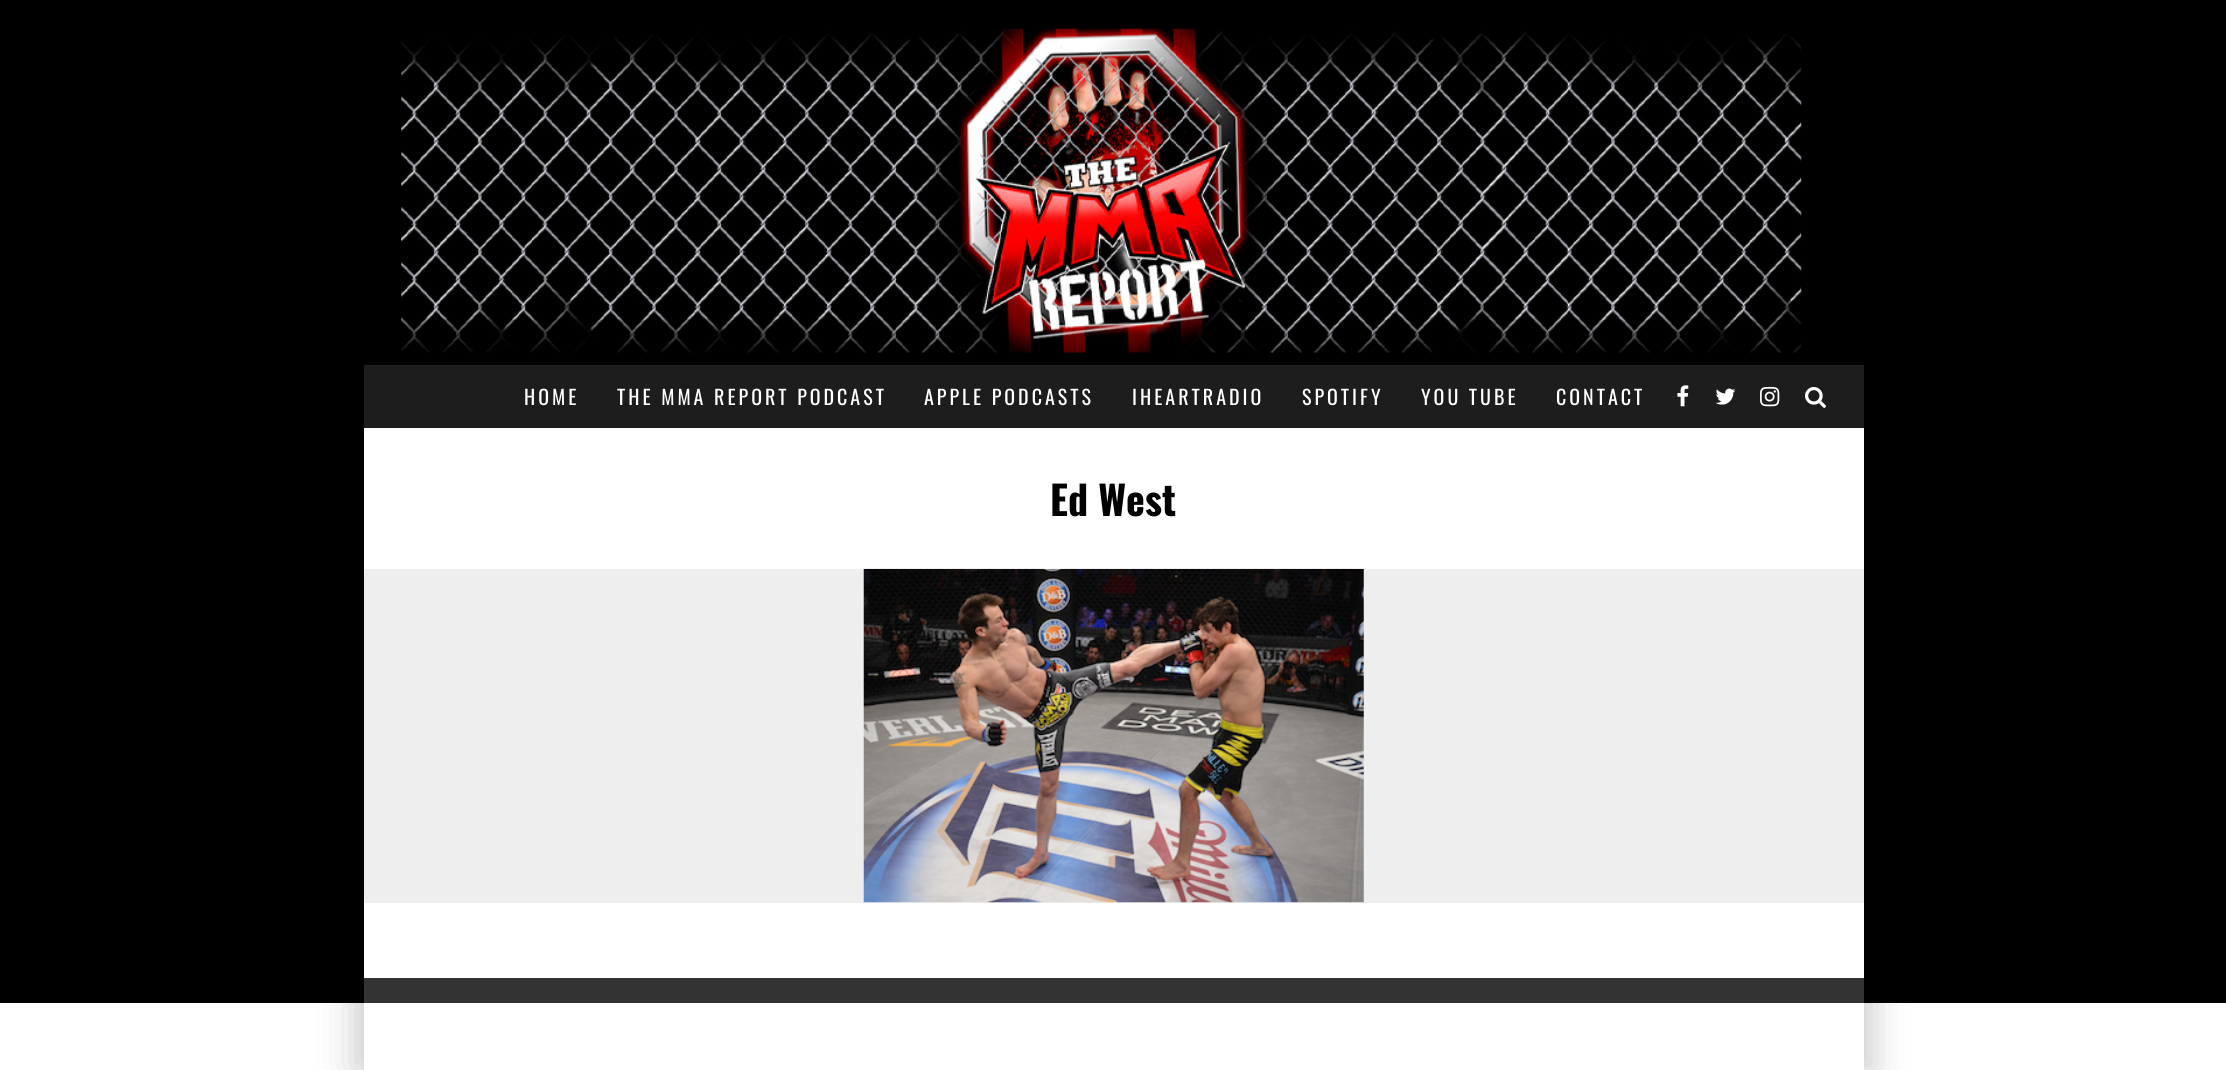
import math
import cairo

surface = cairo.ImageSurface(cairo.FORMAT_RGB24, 2226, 1070)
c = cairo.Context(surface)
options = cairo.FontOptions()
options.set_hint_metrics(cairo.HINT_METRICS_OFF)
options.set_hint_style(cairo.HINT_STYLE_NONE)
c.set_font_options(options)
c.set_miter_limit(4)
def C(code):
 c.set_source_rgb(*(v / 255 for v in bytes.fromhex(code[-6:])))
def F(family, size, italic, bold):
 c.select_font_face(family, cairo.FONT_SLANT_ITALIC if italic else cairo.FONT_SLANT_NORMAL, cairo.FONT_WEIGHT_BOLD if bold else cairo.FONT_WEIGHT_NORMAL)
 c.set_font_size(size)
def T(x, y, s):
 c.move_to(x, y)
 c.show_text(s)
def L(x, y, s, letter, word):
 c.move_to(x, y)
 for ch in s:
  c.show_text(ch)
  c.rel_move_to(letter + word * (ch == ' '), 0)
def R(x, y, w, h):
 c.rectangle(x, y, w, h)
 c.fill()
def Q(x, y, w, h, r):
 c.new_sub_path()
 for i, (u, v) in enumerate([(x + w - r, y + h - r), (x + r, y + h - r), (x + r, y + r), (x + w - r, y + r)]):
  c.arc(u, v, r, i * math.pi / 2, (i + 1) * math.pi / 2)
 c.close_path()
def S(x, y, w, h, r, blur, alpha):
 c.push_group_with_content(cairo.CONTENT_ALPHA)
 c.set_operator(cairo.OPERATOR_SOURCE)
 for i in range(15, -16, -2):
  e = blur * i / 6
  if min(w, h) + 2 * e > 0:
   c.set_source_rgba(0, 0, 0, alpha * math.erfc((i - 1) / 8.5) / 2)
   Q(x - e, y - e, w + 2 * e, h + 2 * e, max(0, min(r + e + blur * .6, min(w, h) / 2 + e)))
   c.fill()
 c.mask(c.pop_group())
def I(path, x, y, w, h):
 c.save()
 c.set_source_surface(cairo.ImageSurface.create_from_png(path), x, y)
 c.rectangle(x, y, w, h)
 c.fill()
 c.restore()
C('ffffff')
c.paint()
C('000000')
R(0,0,2226,1003)
c.save()
c.set_fill_rule(cairo.FILL_RULE_EVEN_ODD)
c.new_path()
c.move_to(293,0)
c.line_to(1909,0)
c.line_to(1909,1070)
c.line_to(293,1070)
c.close_path()
c.move_to(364,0)
c.line_to(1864,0)
c.line_to(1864,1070)
c.line_to(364,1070)
c.close_path()
c.clip()
C('000000')
S(351,0,1500,1070,0,19,.15)
c.restore()
c.save()
c.set_fill_rule(cairo.FILL_RULE_EVEN_ODD)
c.new_path()
c.move_to(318,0)
c.line_to(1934,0)
c.line_to(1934,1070)
c.line_to(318,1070)
c.close_path()
c.move_to(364,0)
c.line_to(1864,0)
c.line_to(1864,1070)
c.line_to(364,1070)
c.close_path()
c.clip()
C('000000')
S(376,0,1500,1070,0,19,.15)
c.restore()
I('1.png',401,28,1401,325)
C('1d1d1d')
R(364,365,1500,63)
F('Oswald',20,0,0)
C('ffffff')
L(524,405,'HOME',3,0)
L(617,405,'THE MMA REPORT PODCAST',3,0)
L(924,405,'APPLE PODCASTS',3,0)
L(1132,405,'IHEARTRADIO',3,0)
L(1302,405,'SPOTIFY',3,0)
L(1421,405,'YOU TUBE',3,0)
L(1556,405,'CONTACT',3,0)
I('2.png',1677,385,12,22)
I('3.png',1715,388,21,17)
I('4.png',1760,386,20,21)
I('5.png',1805,387,21,21)
R(364,428,1500,550)
F('Oswald',40,0,1)
C('000000')
T(1050,516,'Ed West')
C('eeeeee')
R(364,569,1500,334)
I('6.png',863,568,501,335)
C('333333')
R(364,978,1500,25)
surface.write_to_png('o.png')
